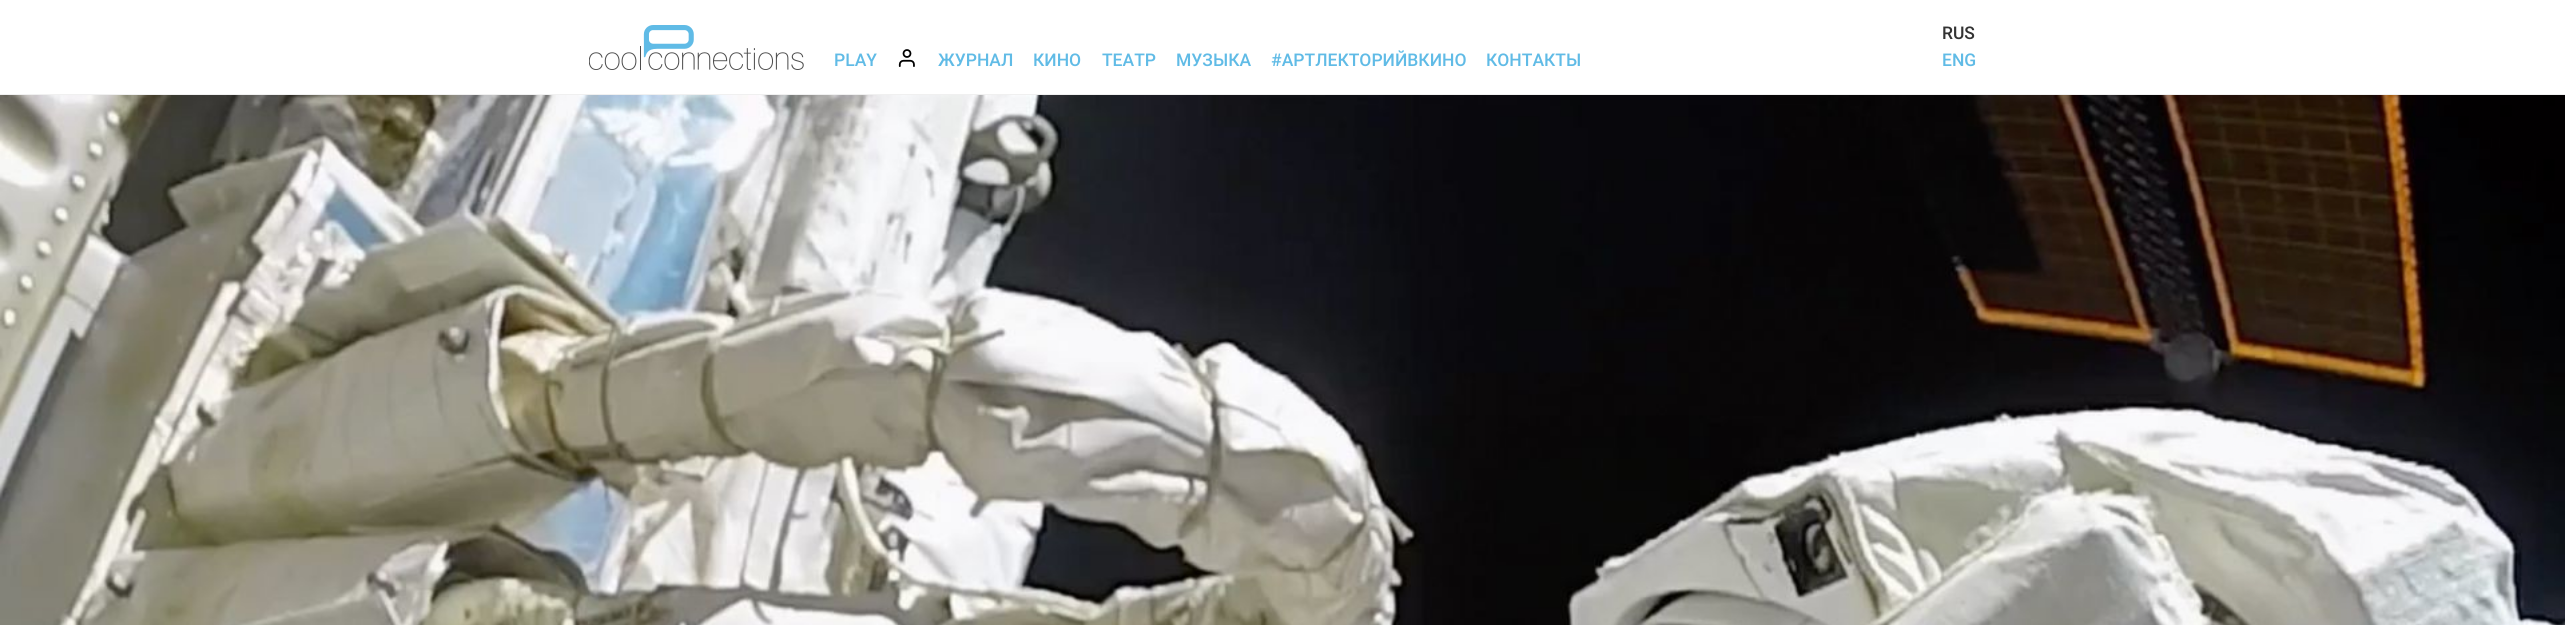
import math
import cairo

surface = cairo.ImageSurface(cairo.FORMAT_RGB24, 2565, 625)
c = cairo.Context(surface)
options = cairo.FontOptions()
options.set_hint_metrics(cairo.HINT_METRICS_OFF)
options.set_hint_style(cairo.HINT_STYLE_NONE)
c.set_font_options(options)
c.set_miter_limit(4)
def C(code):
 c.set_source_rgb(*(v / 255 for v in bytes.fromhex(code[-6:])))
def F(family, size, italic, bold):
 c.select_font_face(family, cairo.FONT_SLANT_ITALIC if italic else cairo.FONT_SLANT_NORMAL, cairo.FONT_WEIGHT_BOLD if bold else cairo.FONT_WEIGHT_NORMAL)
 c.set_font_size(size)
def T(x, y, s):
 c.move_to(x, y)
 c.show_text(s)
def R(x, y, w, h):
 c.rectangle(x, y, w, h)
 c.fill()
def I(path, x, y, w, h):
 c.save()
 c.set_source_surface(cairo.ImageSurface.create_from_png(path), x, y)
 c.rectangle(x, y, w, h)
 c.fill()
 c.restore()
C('ffffff')
c.paint()
C('f0f0f0')
R(0,94,2565,1)
I('1.png',589,25,215,45)
F('Roboto Medium',17.5,0,0)
C('60bbe6')
T(834,66,'PLAY')
I('2.png',898,49,17,18)
T(938,66,'ЖУРНАЛ')
T(1033,66,'КИНО')
T(1102,66,'ТЕАТР')
T(1176,66,'МУЗЫКА')
T(1271,66,'#АРТЛЕКТОРИЙВКИНО')
T(1486,66,'КОНТАКТЫ')
C('333333')
T(1942,39,'RUS')
C('60bbe6')
T(1942,66,'ENG')
I('3.png',0,95,2565,530)
surface.write_to_png('o.png')
